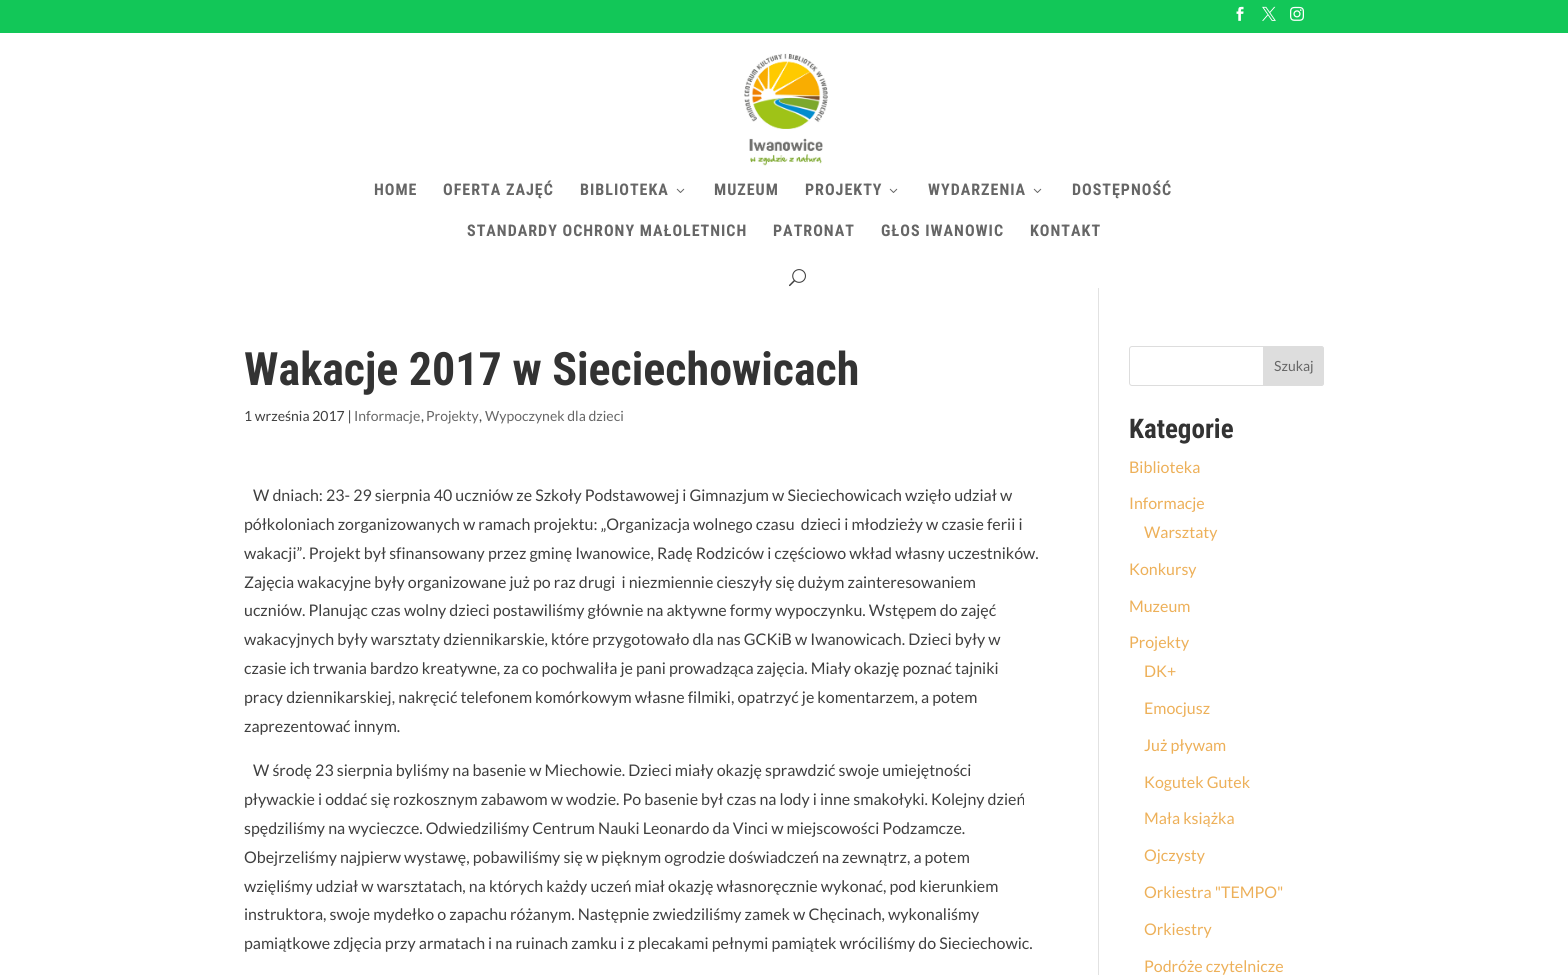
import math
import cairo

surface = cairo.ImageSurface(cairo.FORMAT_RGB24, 1568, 975)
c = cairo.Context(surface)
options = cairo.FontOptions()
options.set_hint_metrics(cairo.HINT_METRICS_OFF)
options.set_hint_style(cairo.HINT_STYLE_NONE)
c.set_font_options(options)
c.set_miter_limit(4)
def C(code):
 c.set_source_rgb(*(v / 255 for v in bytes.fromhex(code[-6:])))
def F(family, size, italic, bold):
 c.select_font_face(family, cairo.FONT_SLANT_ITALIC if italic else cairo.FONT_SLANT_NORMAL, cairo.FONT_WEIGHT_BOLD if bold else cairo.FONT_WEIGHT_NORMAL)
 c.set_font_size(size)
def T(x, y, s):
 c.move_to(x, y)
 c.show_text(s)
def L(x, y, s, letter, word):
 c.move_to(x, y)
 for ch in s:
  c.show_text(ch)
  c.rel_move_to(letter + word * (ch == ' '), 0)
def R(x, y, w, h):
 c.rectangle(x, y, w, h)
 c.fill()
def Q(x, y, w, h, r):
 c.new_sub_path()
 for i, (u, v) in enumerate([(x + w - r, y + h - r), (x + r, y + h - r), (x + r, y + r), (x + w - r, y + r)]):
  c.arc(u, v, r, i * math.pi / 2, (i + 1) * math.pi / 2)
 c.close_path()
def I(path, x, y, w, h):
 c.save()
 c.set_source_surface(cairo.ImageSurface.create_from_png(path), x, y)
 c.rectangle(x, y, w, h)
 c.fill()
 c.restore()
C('ffffff')
c.paint()
C('12c758')
R(0,0,1568,33)
I('1.png',1236,6,8,15)
I('2.png',1262,6,14,15)
I('3.png',1290,6,14,15)
I('4.png',744,53,84,113)
F('Roboto Condensed',16,0,1)
C('666666')
L(374,195,'HOME',1,0)
L(443,195,'OFERTA ZAJĘĆ',1,0)
L(580,195,'BIBLIOTEKA',1,0)
I('5.png',676,188,9,5)
L(714,195,'MUZEUM',1,0)
L(805,195,'PROJEKTY',1,0)
I('5.png',889,188,9,5)
L(928,195,'WYDARZENIA',1,0)
I('5.png',1033,188,9,5)
L(1072,195,'DOSTĘPNOŚĆ',1,0)
L(467,236,'STANDARDY OCHRONY MAŁOLETNICH',1,0)
L(773,236,'PATRONAT',1,0)
L(881,236,'GŁOS IWANOWIC',1,0)
L(1030,236,'KONTAKT',1,0)
I('6.png',789,269,17,18)
C('e2e2e2')
R(1098,288,1,687)
F('Roboto Condensed',46,0,1)
C('333333')
T(244,385,'Wakacje 2017 w Sieciechowicach')
F('Lato',14,0,0)
C('3f3f3f')
T(244,421,'1 września 2017 |')
C('666666')
T(354,421,'Informacje')
C('3f3f3f')
T(421,421,',')
C('666666')
T(426,421,'Projekty')
C('3f3f3f')
T(479,421,',')
C('666666')
T(485,421,'Wypoczynek dla dzieci')
F('Lato',16,0,0)
C('3f3f3f')
T(253,501,'W dniach: 23- 29 sierpnia 40 uczniów ze Szkoły Podstawowej i Gimnazjum w Sieciechowicach wzięło udział w')
T(244,530,'półkoloniach zorganizowanych w ramach projektu: „Organizacja wolnego czasu  dzieci i młodzieży w czasie ferii i')
T(244,559,'wakacji”. Projekt był sfinansowany przez gminę Iwanowice, Radę Rodziców i częściowo wkład własny uczestników.')
T(244,588,'Zajęcia wakacyjne były organizowane już po raz drugi  i niezmiennie cieszyły się dużym zainteresowaniem')
T(244,616,'uczniów. Planując czas wolny dzieci postawiliśmy głównie na aktywne formy wypoczynku. Wstępem do zajęć')
T(244,645,'wakacyjnych były warsztaty dziennikarskie, które przygotowało dla nas GCKiB w Iwanowicach. Dzieci były w')
T(244,674,'czasie ich trwania bardzo kreatywne, za co pochwaliła je pani prowadząca zajęcia. Miały okazję poznać tajniki')
T(244,703,'pracy dziennikarskiej, nakręcić telefonem komórkowym własne filmiki, opatrzyć je komentarzem, a potem')
T(244,732,'zaprezentować innym.')
T(253,776,'W środę 23 sierpnia byliśmy na basenie w Miechowie. Dzieci miały okazję sprawdzić swoje umiejętności')
T(244,805,'pływackie i oddać się rozkosznym zabawom w wodzie. Po basenie był czas na lody i inne smakołyki. Kolejny dzień')
T(244,834,'spędziliśmy na wycieczce. Odwiedziliśmy Centrum Nauki Leonardo da Vinci w miejscowości Podzamcze.')
T(244,863,'Obejrzeliśmy najpierw wystawę, pobawiliśmy się w pięknym ogrodzie doświadczeń na zewnątrz, a potem')
T(244,892,'wzięliśmy udział w warsztatach, na których każdy uczeń miał okazję własnoręcznie wykonać, pod kierunkiem')
T(244,920,'instruktora, swoje mydełko o zapachu różanym. Następnie zwiedziliśmy zamek w Chęcinach, wykonaliśmy')
T(244,949,'pamiątkowe zdjęcia przy armatach i na ruinach zamku i z plecakami pełnymi pamiątek wróciliśmy do Sieciechowic.')
Q(1129.5,346.5,194,39,2.5)
C('dddddd')
c.set_line_width(1)
c.stroke()
c.new_path()
c.move_to(1263.5,346.5)
c.line_to(1321,346.5)
c.curve_to(1322.5,346.5,1323.5,347.5,1323.5,349)
c.line_to(1323.5,383)
c.curve_to(1323.5,384.5,1322.5,385.5,1321,385.5)
c.line_to(1263.5,385.5)
c.close_path()
c.fill_preserve()
c.stroke()
F('Lato',14,0,0)
C('666666')
T(1274,371,'Szukaj')
F('Roboto Condensed',27,0,1)
C('333333')
T(1129,438,'Kategorie')
F('Lato',16,0,0)
C('edb059')
T(1129,473,'Biblioteka')
T(1129,509,'Informacje')
T(1144,538,'Warsztaty')
T(1129,575,'Konkursy')
T(1129,612,'Muzeum')
T(1129,648,'Projekty')
T(1144,677,'DK+')
T(1144,714,'Emocjusz')
T(1144,751,'Już pływam')
T(1144,788,'Kogutek Gutek')
T(1144,824,'Mała książka')
T(1144,861,'Ojczysty')
T(1144,898,'Orkiestra "TEMPO"')
T(1144,935,'Orkiestry')
T(1144,972,'Podróże czytelnicze')
surface.write_to_png('o.png')
